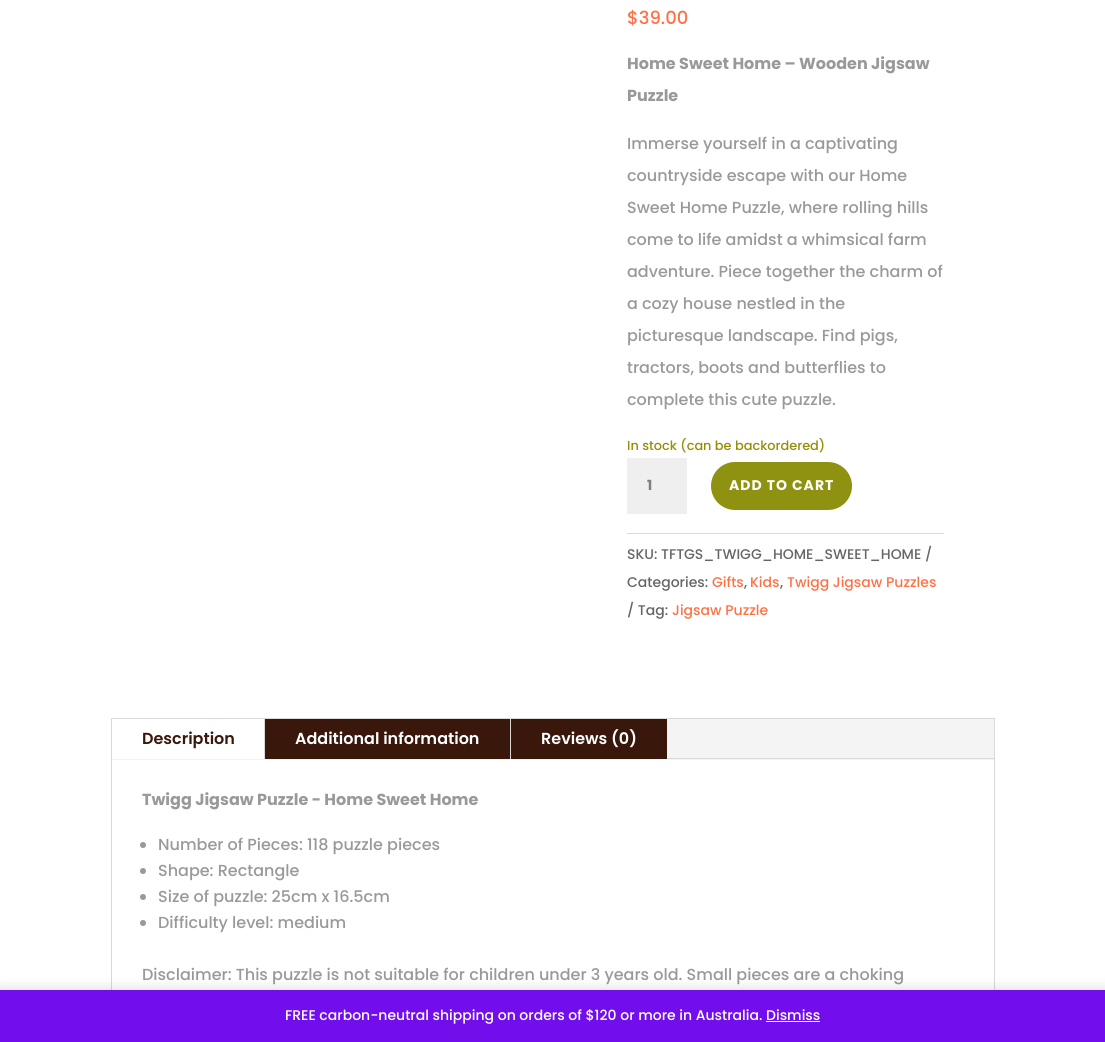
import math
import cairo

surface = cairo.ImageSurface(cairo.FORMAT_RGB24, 1105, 1042)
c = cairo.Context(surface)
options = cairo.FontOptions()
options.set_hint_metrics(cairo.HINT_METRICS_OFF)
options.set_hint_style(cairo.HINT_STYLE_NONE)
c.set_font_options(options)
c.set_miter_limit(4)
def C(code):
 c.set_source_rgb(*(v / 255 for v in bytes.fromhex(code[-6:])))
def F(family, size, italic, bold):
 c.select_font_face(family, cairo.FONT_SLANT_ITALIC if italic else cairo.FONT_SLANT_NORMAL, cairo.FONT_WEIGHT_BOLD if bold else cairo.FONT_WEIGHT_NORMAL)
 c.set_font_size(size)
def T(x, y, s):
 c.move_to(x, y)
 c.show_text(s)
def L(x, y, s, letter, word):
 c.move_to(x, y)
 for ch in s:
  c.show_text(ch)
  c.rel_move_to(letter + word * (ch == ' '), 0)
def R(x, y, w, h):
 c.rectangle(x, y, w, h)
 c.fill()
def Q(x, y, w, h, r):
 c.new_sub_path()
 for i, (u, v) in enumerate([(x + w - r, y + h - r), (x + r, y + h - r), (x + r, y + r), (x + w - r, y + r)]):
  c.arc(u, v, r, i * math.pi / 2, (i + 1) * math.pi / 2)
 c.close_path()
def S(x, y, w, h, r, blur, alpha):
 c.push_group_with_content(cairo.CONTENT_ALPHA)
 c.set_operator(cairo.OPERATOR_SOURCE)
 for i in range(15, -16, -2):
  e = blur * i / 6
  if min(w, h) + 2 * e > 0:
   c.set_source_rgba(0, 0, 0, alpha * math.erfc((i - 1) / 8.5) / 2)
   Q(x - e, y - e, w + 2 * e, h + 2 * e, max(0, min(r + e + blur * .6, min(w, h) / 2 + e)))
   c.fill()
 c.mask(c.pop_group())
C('ffffff')
c.paint()
F('Poppins Medium',18,0,0)
C('ff7145')
T(627,24,'$39.00')
F('Poppins',16,0,1)
C('999999')
T(627,69,'Home Sweet Home – Wooden Jigsaw')
T(627,101,'Puzzle')
F('Poppins Medium',16,0,0)
T(627,149,'Immerse yourself in a captivating')
T(627,181,'countryside escape with our Home')
T(627,213,'Sweet Home Puzzle, where rolling hills')
T(627,245,'come to life amidst a whimsical farm')
T(627,277,'adventure. Piece together the charm of')
T(627,309,'a cozy house nestled in the')
T(627,341,'picturesque landscape. Find pigs,')
T(627,373,'tractors, boots and butterflies to')
T(627,405,'complete this cute puzzle.')
F('Poppins Medium',12.9,0,0)
C('958e09')
T(627,450,'In stock (can be backordered)')
C('efefef')
R(627,458,60,56)
F('Poppins',14,0,1)
C('7f7f7f')
T(647,490,'1')
C('8f9110')
Q(711,462,141,48,24)
c.fill()
C('ffffff')
L(729,490,'ADD TO CART',1,0)
C('dadada')
R(627,533,317,1)
F('Poppins Medium',14,0,0)
C('666666')
T(627,559,'SKU: TFTGS_TWIGG_HOME_SWEET_HOME /')
T(627,587,'Categories:')
C('ff7145')
T(712,587,'Gifts')
C('666666')
T(744,587,',')
C('ff7145')
T(750,587,'Kids')
C('666666')
T(780,587,',')
C('ff7145')
T(787,587,'Twigg Jigsaw Puzzles')
C('666666')
T(627,615,'/ Tag:')
C('ff7145')
T(672,615,'Jigsaw Puzzle')
c.rectangle(111.5,718.5,883,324)
C('d9d9d9')
c.set_line_width(1)
c.stroke()
C('f4f4f4')
R(112,719,882,41)
C('ffffff')
R(112,719,152,40)
C('d9d9d9')
R(264,719,1,40)
F('Poppins SemiBold',16,0,0)
C('3a170b')
T(142,744,'Description')
R(265,719,245,40)
C('d9d9d9')
R(510,719,1,40)
C('ffffff')
T(295,744,'Additional information')
C('3a170b')
R(511,719,156,40)
C('ffffff')
T(541,744,'Reviews (0)')
C('d9d9d9')
R(667,758,327,1)
F('Poppins',16,0,1)
C('999999')
T(142,805,'Twigg Jigsaw Puzzle - Home Sweet Home')
c.new_path()
c.arc(143,845,3,0,2 * math.pi)
c.fill()
F('Poppins Medium',16,0,0)
T(158,850,'Number of Pieces: 118 puzzle pieces')
c.new_path()
c.arc(143,871,3,0,2 * math.pi)
c.fill()
T(158,876,'Shape: Rectangle')
c.new_path()
c.arc(143,897,3,0,2 * math.pi)
c.fill()
T(158,902,'Size of puzzle: 25cm x 16.5cm')
c.new_path()
c.arc(143,923,3,0,2 * math.pi)
c.fill()
T(158,928,'Difficulty level: medium')
T(142,980,'Disclaimer: This puzzle is not suitable for children under 3 years old. Small pieces are a choking')
C('000000')
S(0,991,1105,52,0,7,.2)
C('720eec')
R(0,990,1105,52)
F('Poppins Medium',14,0,0)
C('ffffff')
T(285,1020,'FREE carbon-neutral shipping on orders of $120 or more in Australia. Dismiss')
C('fcfbfe')
R(766,1021,54,1)
surface.write_to_png('o.png')
